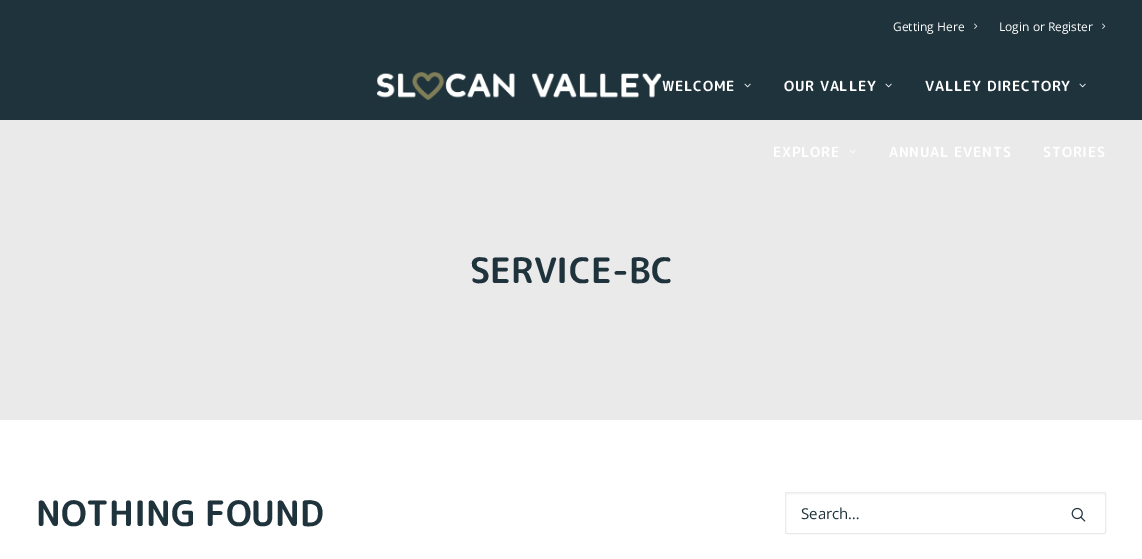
%!PS
<< /PageSize [1142 559] >> setpagedevice
/roundrect { 5 dict begin { /r /h /w /y /x } { exch def } forall
  x r add y moveto x w add y 2 copy h add r arct x w add y h add x 1 index r arct
  x y h add x y r arct x y 2 copy exch w add exch r arct closepath end } def
/picture { 5 dict begin { /h /w /y /x /name } { exch def } forall
  gsave x y translate w h scale
  w h 8 [w 0 0 h 0 0] name (r) file false 3 colorimage grestore end } def
0 559 translate 1 -1 scale
4 setmiterlimit
0.918 setgray
0 0 1142 559 rectfill
0.122 0.2 0.235 setrgbcolor
0 0 1142 120 rectfill
/OpenSans-Regular [12 0 0 -12 0 0] selectfont
1 setgray
893 31 moveto (Getting Here) show
(img1.rgb) 974 23 4 6 picture
999 31 moveto (Login or Register) show
(img1.rgb) 1102 23 4 6 picture
(img2.rgb) 377 72 285 28 picture
/RoundedMplus1cBold-Bold [14 0 0 -14 0 0] selectfont
662 91 moveto 0.75 0 (WELCOME) ashow
(img3.rgb) 744 83 7 5 picture
784 91 moveto 0.75 0 (OUR VALLEY) ashow
(img3.rgb) 885 83 7 5 picture
925 91 moveto 0.75 0 (VALLEY DIRECTORY) ashow
(img3.rgb) 1079 83 7 5 picture
773 157 moveto 0.75 0 (EXPLORE) ashow
(img4.rgb) 849 150 7 3 picture
889 157 moveto 0.75 0 (ANNUAL EVENTS) ashow
1043 157 moveto 0.75 0 (STORIES) ashow
/RoundedMplus1cBold-Bold [35 0 0 -35 0 0] selectfont
0.122 0.2 0.235 setrgbcolor
470 283 moveto (SERVICE-BC) show
1 setgray
0 420 1142 139 rectfill
0.122 0.2 0.235 setrgbcolor
36 526 moveto (NOTHING FOUND) show
0.976 setgray
newpath 787 495 moveto 1104 495 lineto 1105 495 1105 495 1105 496 curveto 1105 493 lineto 787 493 lineto 786 493 786 495 786 496 curveto 786 495 786 495 787 495 curveto closepath fill
0.918 setgray
785.5 492.5 320 41 1.5 roundrect stroke
/OpenSans-Regular [15 0 0 -15 0 0] selectfont
0.122 0.2 0.235 setrgbcolor
801 519 moveto (Search…) show
(img5.rgb) 1071 507 15 15 picture
showpage
